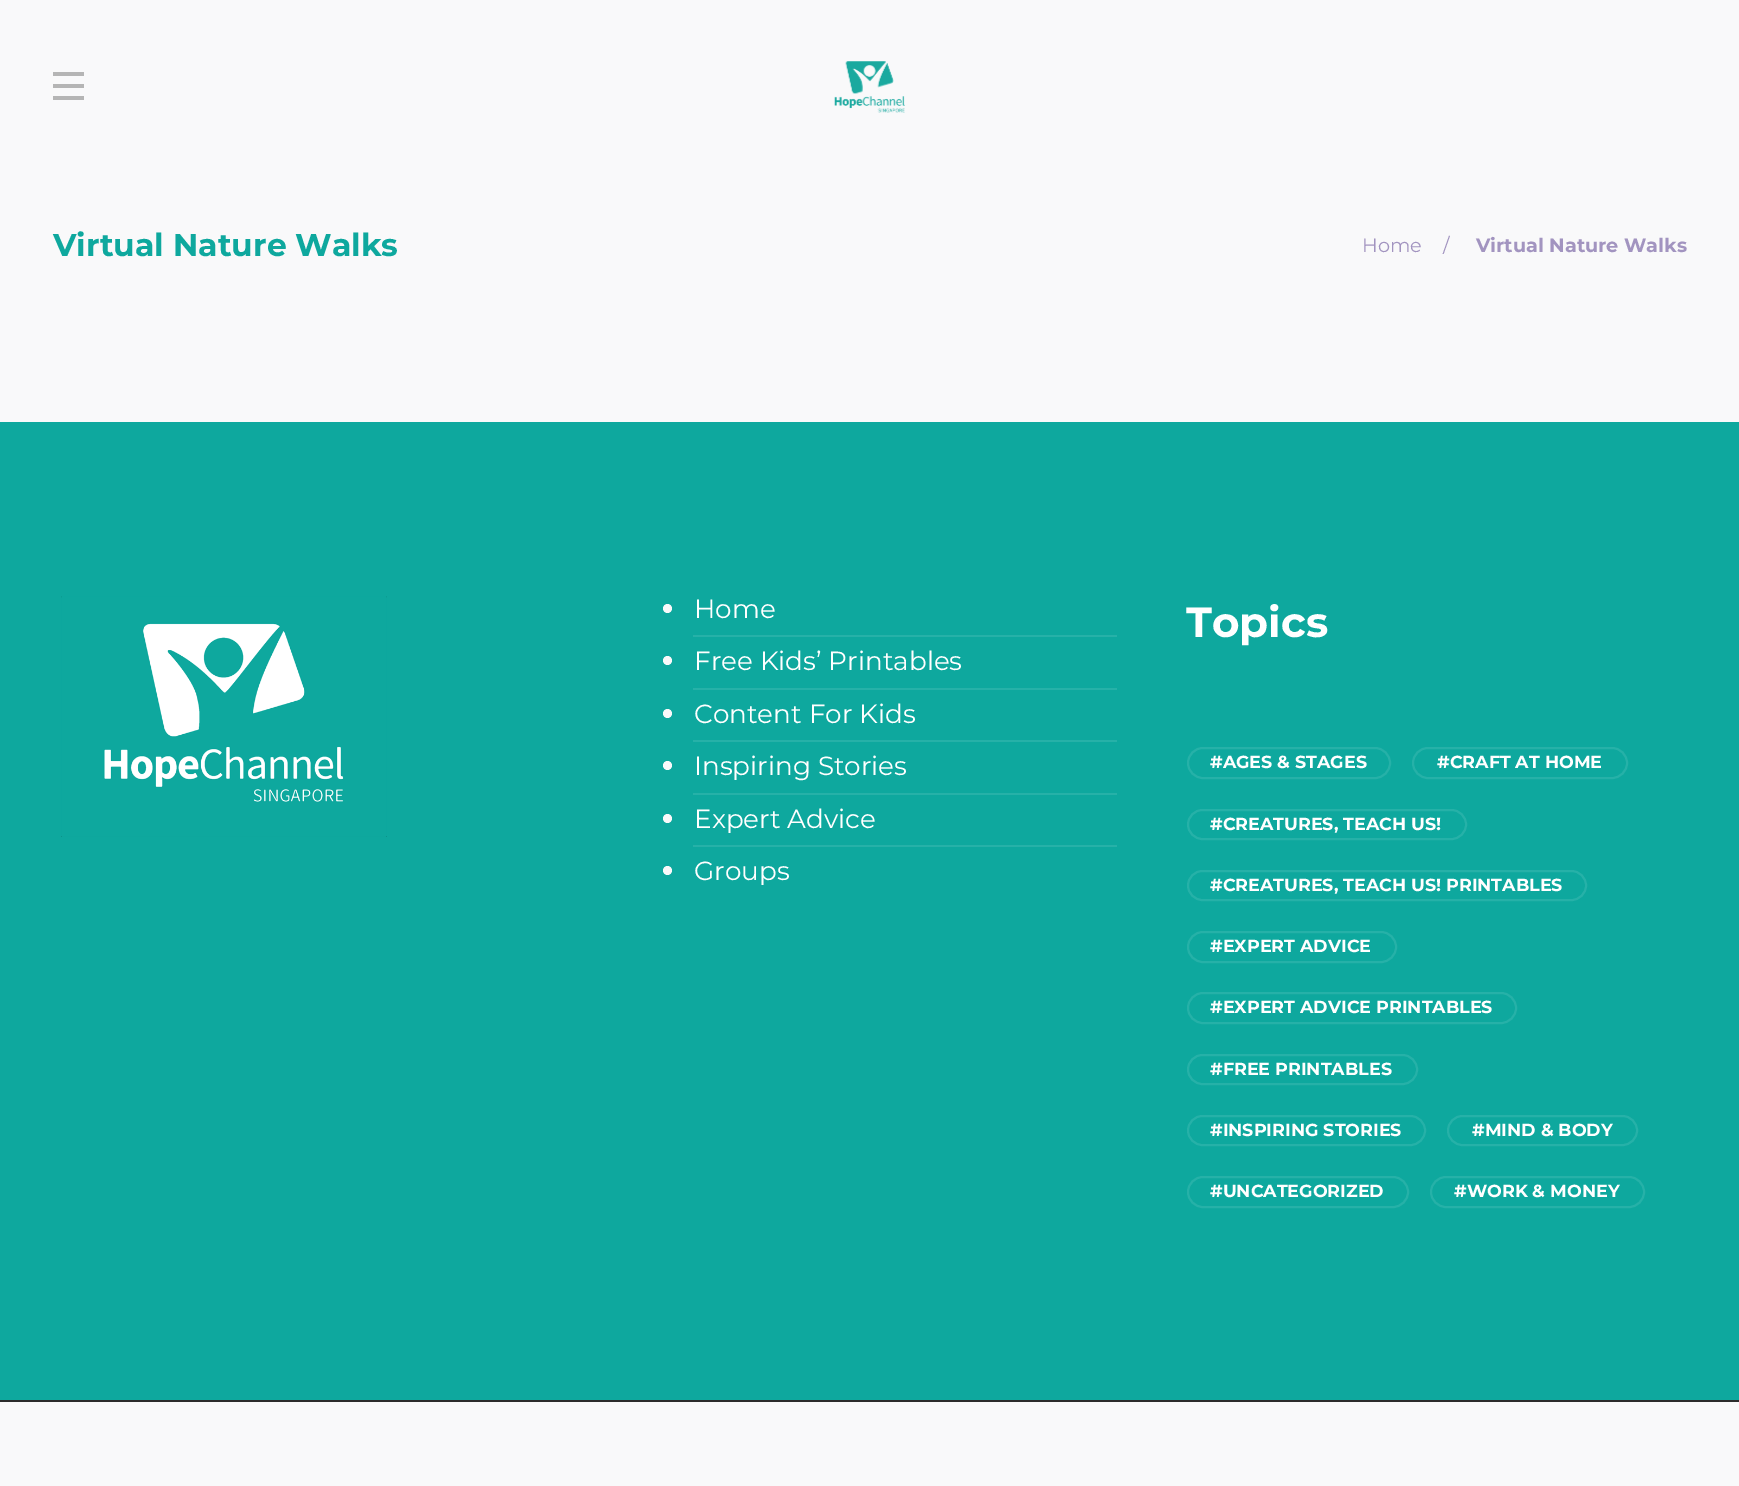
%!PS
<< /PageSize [1739 1486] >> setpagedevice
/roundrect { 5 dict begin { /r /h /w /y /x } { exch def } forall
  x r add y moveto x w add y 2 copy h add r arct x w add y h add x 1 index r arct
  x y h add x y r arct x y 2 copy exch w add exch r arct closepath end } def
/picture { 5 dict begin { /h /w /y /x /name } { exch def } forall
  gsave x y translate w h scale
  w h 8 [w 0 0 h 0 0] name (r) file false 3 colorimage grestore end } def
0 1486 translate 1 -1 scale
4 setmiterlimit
0.976 0.976 0.98 setrgbcolor
0 0 1739 1486 rectfill
0.71 setgray
53 72 31 4 rectfill
53 84 31 4 rectfill
53 96 31 4 rectfill
(img1.rgb) 834 61 71 52 picture
/Montserrat-Bold [31.5 0 0 -31.5 0 0] selectfont
0.055 0.659 0.62 setrgbcolor
53 256 moveto (Virtual Nature Walks) show
/Montserrat-Regular [19.25 0 0 -19.25 0 0] selectfont
0.635 0.58 0.753 setrgbcolor
1362 252 moveto (Home) show
1443 252 moveto (/) show
/Montserrat-Bold [19.25 0 0 -19.25 0 0] selectfont
1476 252 moveto (Virtual Nature Walks) show
0.055 0.659 0.62 setrgbcolor
0 422 1739 978 rectfill
0.173 setgray
0 1400 1739 2 rectfill
(img2.rgb) 61 596 326 241 picture
0.149 0.694 0.659 setrgbcolor
693 635 424 2 rectfill
0.976 0.976 0.98 setrgbcolor
newpath 667.5 608.5 4.5 0 360 arc closepath fill
/Montserrat-Regular [26.25 0 0 -26.25 0 0] selectfont
1 setgray
694 618 moveto (Home) show
0.149 0.694 0.659 setrgbcolor
693 688 424 2 rectfill
0.976 0.976 0.98 setrgbcolor
newpath 667.5 660.5 4.5 0 360 arc closepath fill
1 setgray
694 670 moveto (Free Kids’ Printables) show
0.149 0.694 0.659 setrgbcolor
693 740 424 2 rectfill
0.976 0.976 0.98 setrgbcolor
newpath 667.5 713.5 4.5 0 360 arc closepath fill
1 setgray
694 723 moveto (Content For Kids) show
0.149 0.694 0.659 setrgbcolor
693 793 424 2 rectfill
0.976 0.976 0.98 setrgbcolor
newpath 667.5 765.5 4.5 0 360 arc closepath fill
1 setgray
694 775 moveto (Inspiring Stories) show
0.149 0.694 0.659 setrgbcolor
693 845 424 2 rectfill
0.976 0.976 0.98 setrgbcolor
newpath 667.5 818.5 4.5 0 360 arc closepath fill
1 setgray
694 828 moveto (Expert Advice) show
0.976 0.976 0.98 setrgbcolor
newpath 667.5 870.5 4.5 0 360 arc closepath fill
1 setgray
694 880 moveto (Groups) show
/Montserrat-Bold [42 0 0 -42 0 0] selectfont
1186 637 moveto (Topics) show
0.149 0.694 0.659 setrgbcolor
2 setlinewidth
1188 748 202 30 15 roundrect stroke
/Montserrat-Bold [17.5 0 0 -17.5 0 0] selectfont
1 setgray
1210 768 moveto (#AGES & STAGES) show
0.149 0.694 0.659 setrgbcolor
1413 748 214 30 15 roundrect stroke
1 setgray
1437 768 moveto (#CRAFT AT HOME) show
0.149 0.694 0.659 setrgbcolor
1188 810 278 29 14.5 roundrect stroke
1 setgray
1210 830 moveto (#CREATURES, TEACH US!) show
0.149 0.694 0.659 setrgbcolor
1188 871 398 29 14.5 roundrect stroke
1 setgray
1210 891 moveto (#CREATURES, TEACH US! PRINTABLES) show
0.149 0.694 0.659 setrgbcolor
1188 932 208 30 15 roundrect stroke
1 setgray
1210 952 moveto (#EXPERT ADVICE) show
0.149 0.694 0.659 setrgbcolor
1188 993 328 30 15 roundrect stroke
1 setgray
1210 1013 moveto (#EXPERT ADVICE PRINTABLES) show
0.149 0.694 0.659 setrgbcolor
1188 1055 229 29 14.5 roundrect stroke
1 setgray
1210 1075 moveto (#FREE PRINTABLES) show
0.149 0.694 0.659 setrgbcolor
1188 1116 237 29 14.5 roundrect stroke
1 setgray
1210 1136 moveto (#INSPIRING STORIES) show
0.149 0.694 0.659 setrgbcolor
1448 1116 189 29 14.5 roundrect stroke
1 setgray
1472 1136 moveto (#MIND & BODY) show
0.149 0.694 0.659 setrgbcolor
1188 1177 220 30 15 roundrect stroke
1 setgray
1210 1197 moveto (#UNCATEGORIZED) show
0.149 0.694 0.659 setrgbcolor
1431 1177 213 30 15 roundrect stroke
1 setgray
1454 1197 moveto (#WORK & MONEY) show
showpage
